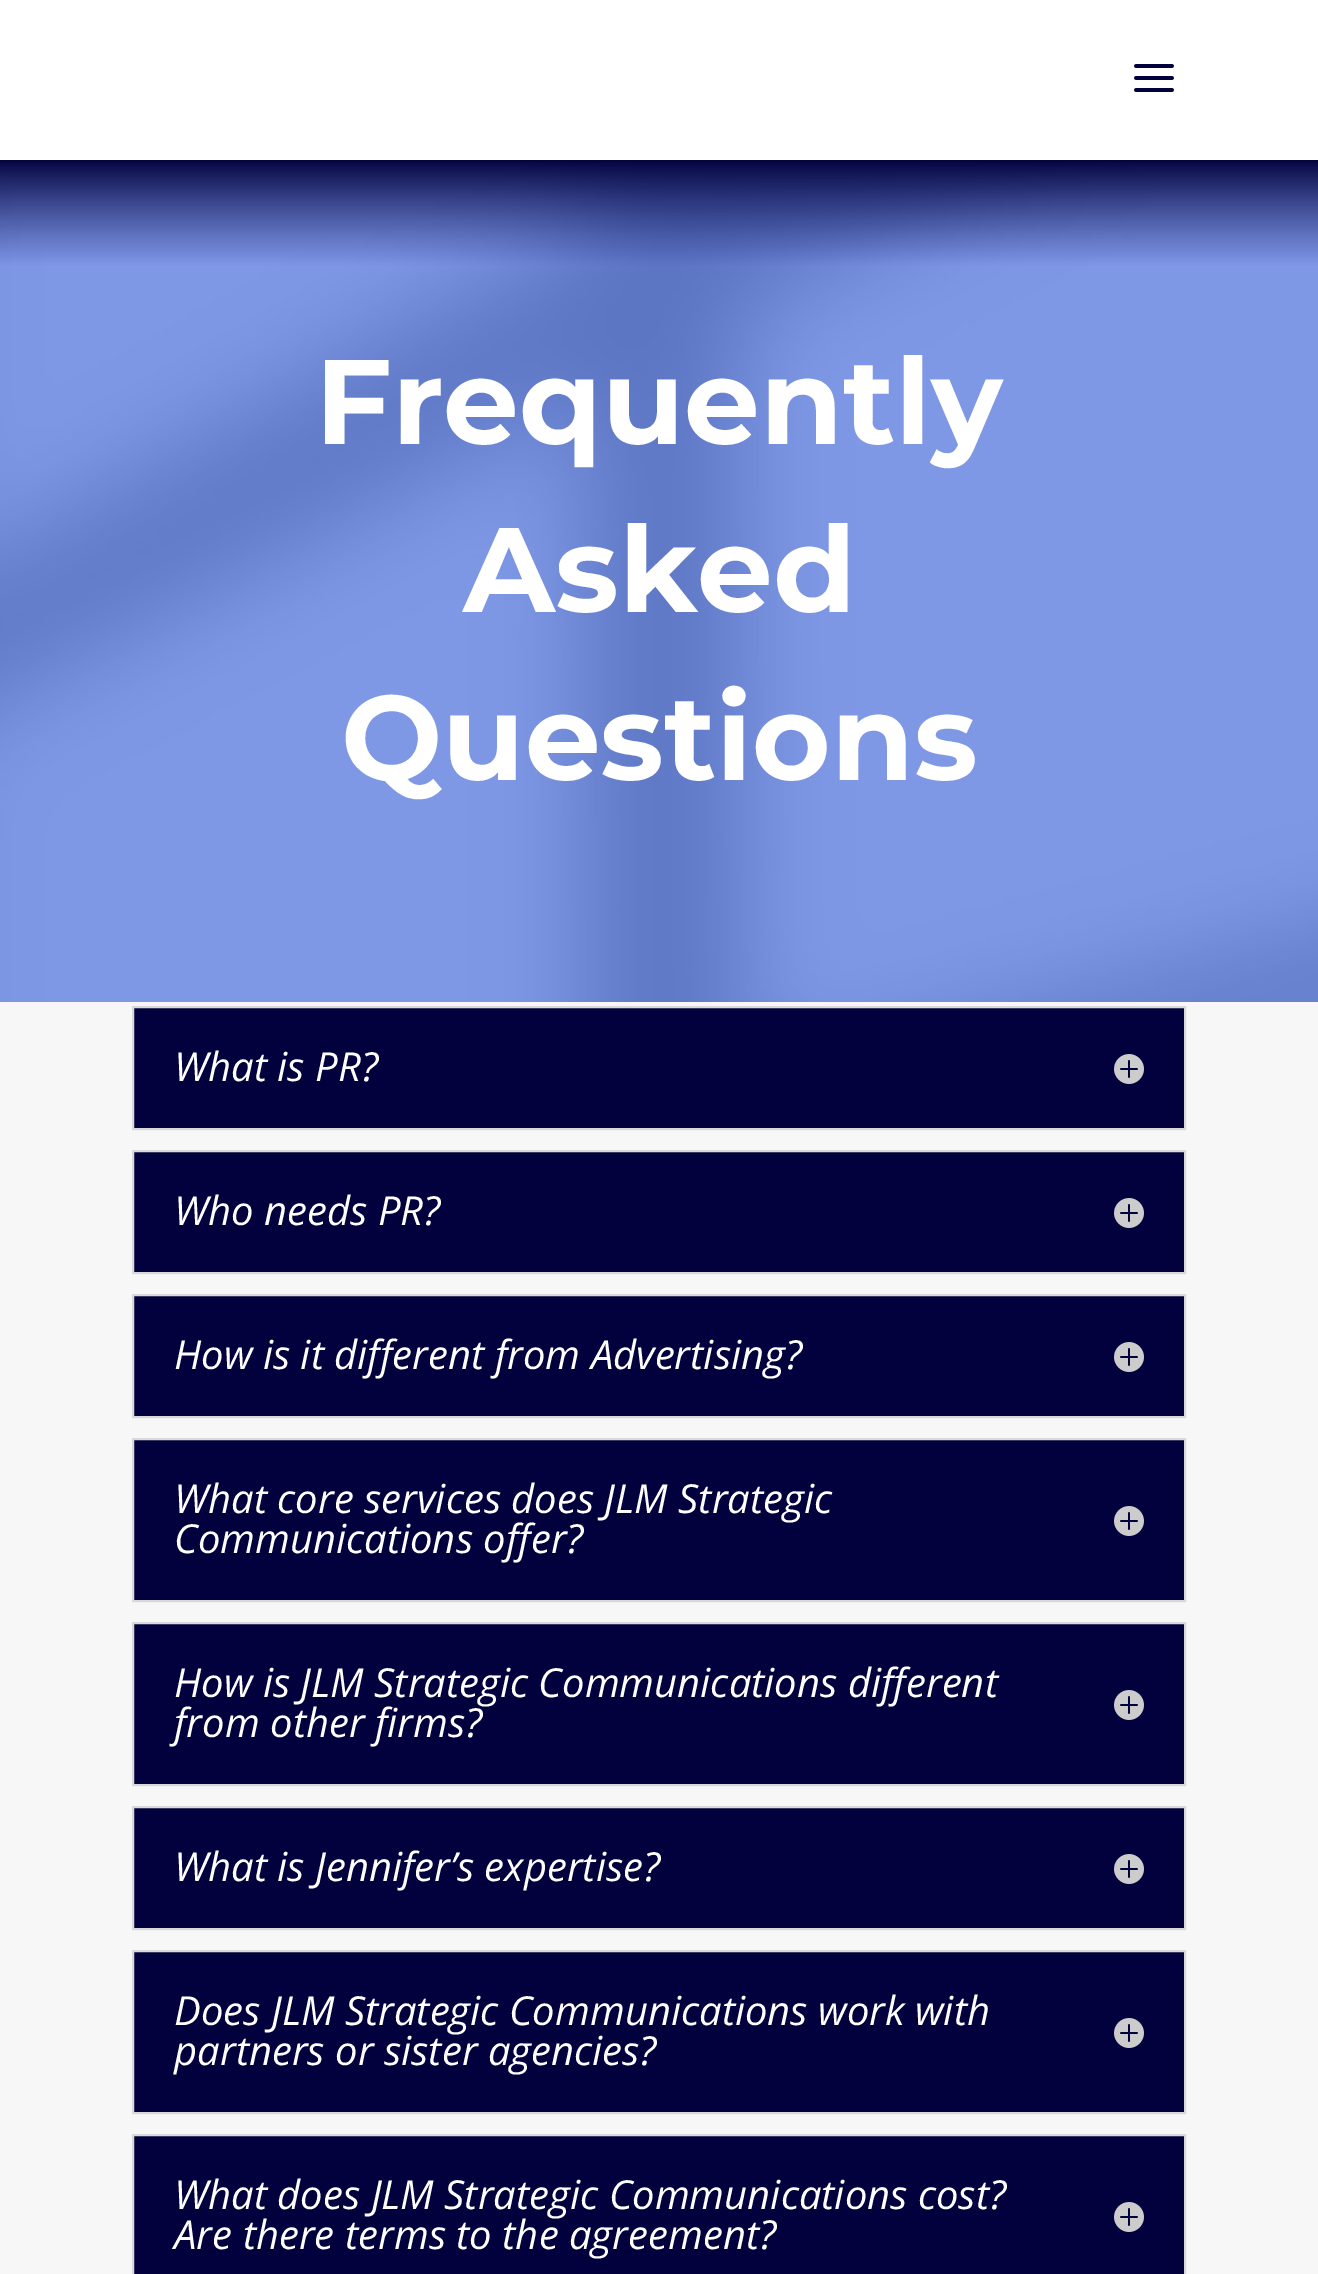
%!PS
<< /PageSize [1318 2274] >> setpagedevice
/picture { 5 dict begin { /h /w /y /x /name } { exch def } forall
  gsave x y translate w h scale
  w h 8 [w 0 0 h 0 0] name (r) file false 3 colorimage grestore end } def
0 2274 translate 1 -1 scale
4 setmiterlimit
1 setgray
0 0 1318 2274 rectfill
0.02 0.02 0.235 setrgbcolor
0 160 1318 2 rectfill
(img1.rgb) 1134 64 40 28 picture
(img2.rgb) 0 162 1318 840 picture
/Montserrat-Bold [120 0 0 -120 0 0] selectfont
1 setgray
315 444 moveto (Frequently) show
463 612 moveto (Asked) show
341 780 moveto (Questions) show
0.969 setgray
0 1002 1318 1272 rectfill
0.008 0.004 0.239 setrgbcolor
newpath 133 1007 moveto 1185 1007 lineto 1185 1129 lineto 133 1129 lineto closepath gsave fill grestore
0.851 setgray
2 setlinewidth
stroke
/OpenSans-Italic [40 0 0 -40 0 0] selectfont
1 setgray
174 1081 moveto (What is PR?) show
(img3.rgb) 1114 1054 30 30 picture
0.008 0.004 0.239 setrgbcolor
newpath 133 1151 moveto 1185 1151 lineto 1185 1273 lineto 133 1273 lineto closepath gsave fill grestore
0.851 setgray
stroke
1 setgray
174 1225 moveto (Who needs PR?) show
(img3.rgb) 1114 1198 30 30 picture
0.008 0.004 0.239 setrgbcolor
newpath 133 1295 moveto 1185 1295 lineto 1185 1417 lineto 133 1417 lineto closepath gsave fill grestore
0.851 setgray
stroke
1 setgray
174 1369 moveto (How is it different from Advertising?) show
(img3.rgb) 1114 1342 30 30 picture
0.008 0.004 0.239 setrgbcolor
newpath 133 1439 moveto 1185 1439 lineto 1185 1601 lineto 133 1601 lineto closepath gsave fill grestore
0.851 setgray
stroke
1 setgray
174 1513 moveto (What core services does JLM Strategic) show
(img3.rgb) 1114 1506 30 30 picture
174 1553 moveto (Communications offer?) show
0.008 0.004 0.239 setrgbcolor
newpath 133 1623 moveto 1185 1623 lineto 1185 1785 lineto 133 1785 lineto closepath gsave fill grestore
0.851 setgray
stroke
1 setgray
174 1697 moveto (How is JLM Strategic Communications different) show
(img3.rgb) 1114 1690 30 30 picture
174 1737 moveto (from other firms?) show
0.008 0.004 0.239 setrgbcolor
newpath 133 1807 moveto 1185 1807 lineto 1185 1929 lineto 133 1929 lineto closepath gsave fill grestore
0.851 setgray
stroke
1 setgray
174 1881 moveto (What is Jennifer’s expertise?) show
(img3.rgb) 1114 1854 30 30 picture
0.008 0.004 0.239 setrgbcolor
newpath 133 1951 moveto 1185 1951 lineto 1185 2113 lineto 133 2113 lineto closepath gsave fill grestore
0.851 setgray
stroke
1 setgray
174 2025 moveto (Does JLM Strategic Communications work with) show
(img3.rgb) 1114 2018 30 30 picture
174 2065 moveto (partners or sister agencies?) show
0.008 0.004 0.239 setrgbcolor
newpath 133 2135 moveto 1185 2135 lineto 1185 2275 lineto 133 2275 lineto closepath gsave fill grestore
0.851 setgray
stroke
1 setgray
174 2209 moveto (What does JLM Strategic Communications cost?) show
(img3.rgb) 1114 2202 30 30 picture
174 2249 moveto (Are there terms to the agreement?) show
showpage
